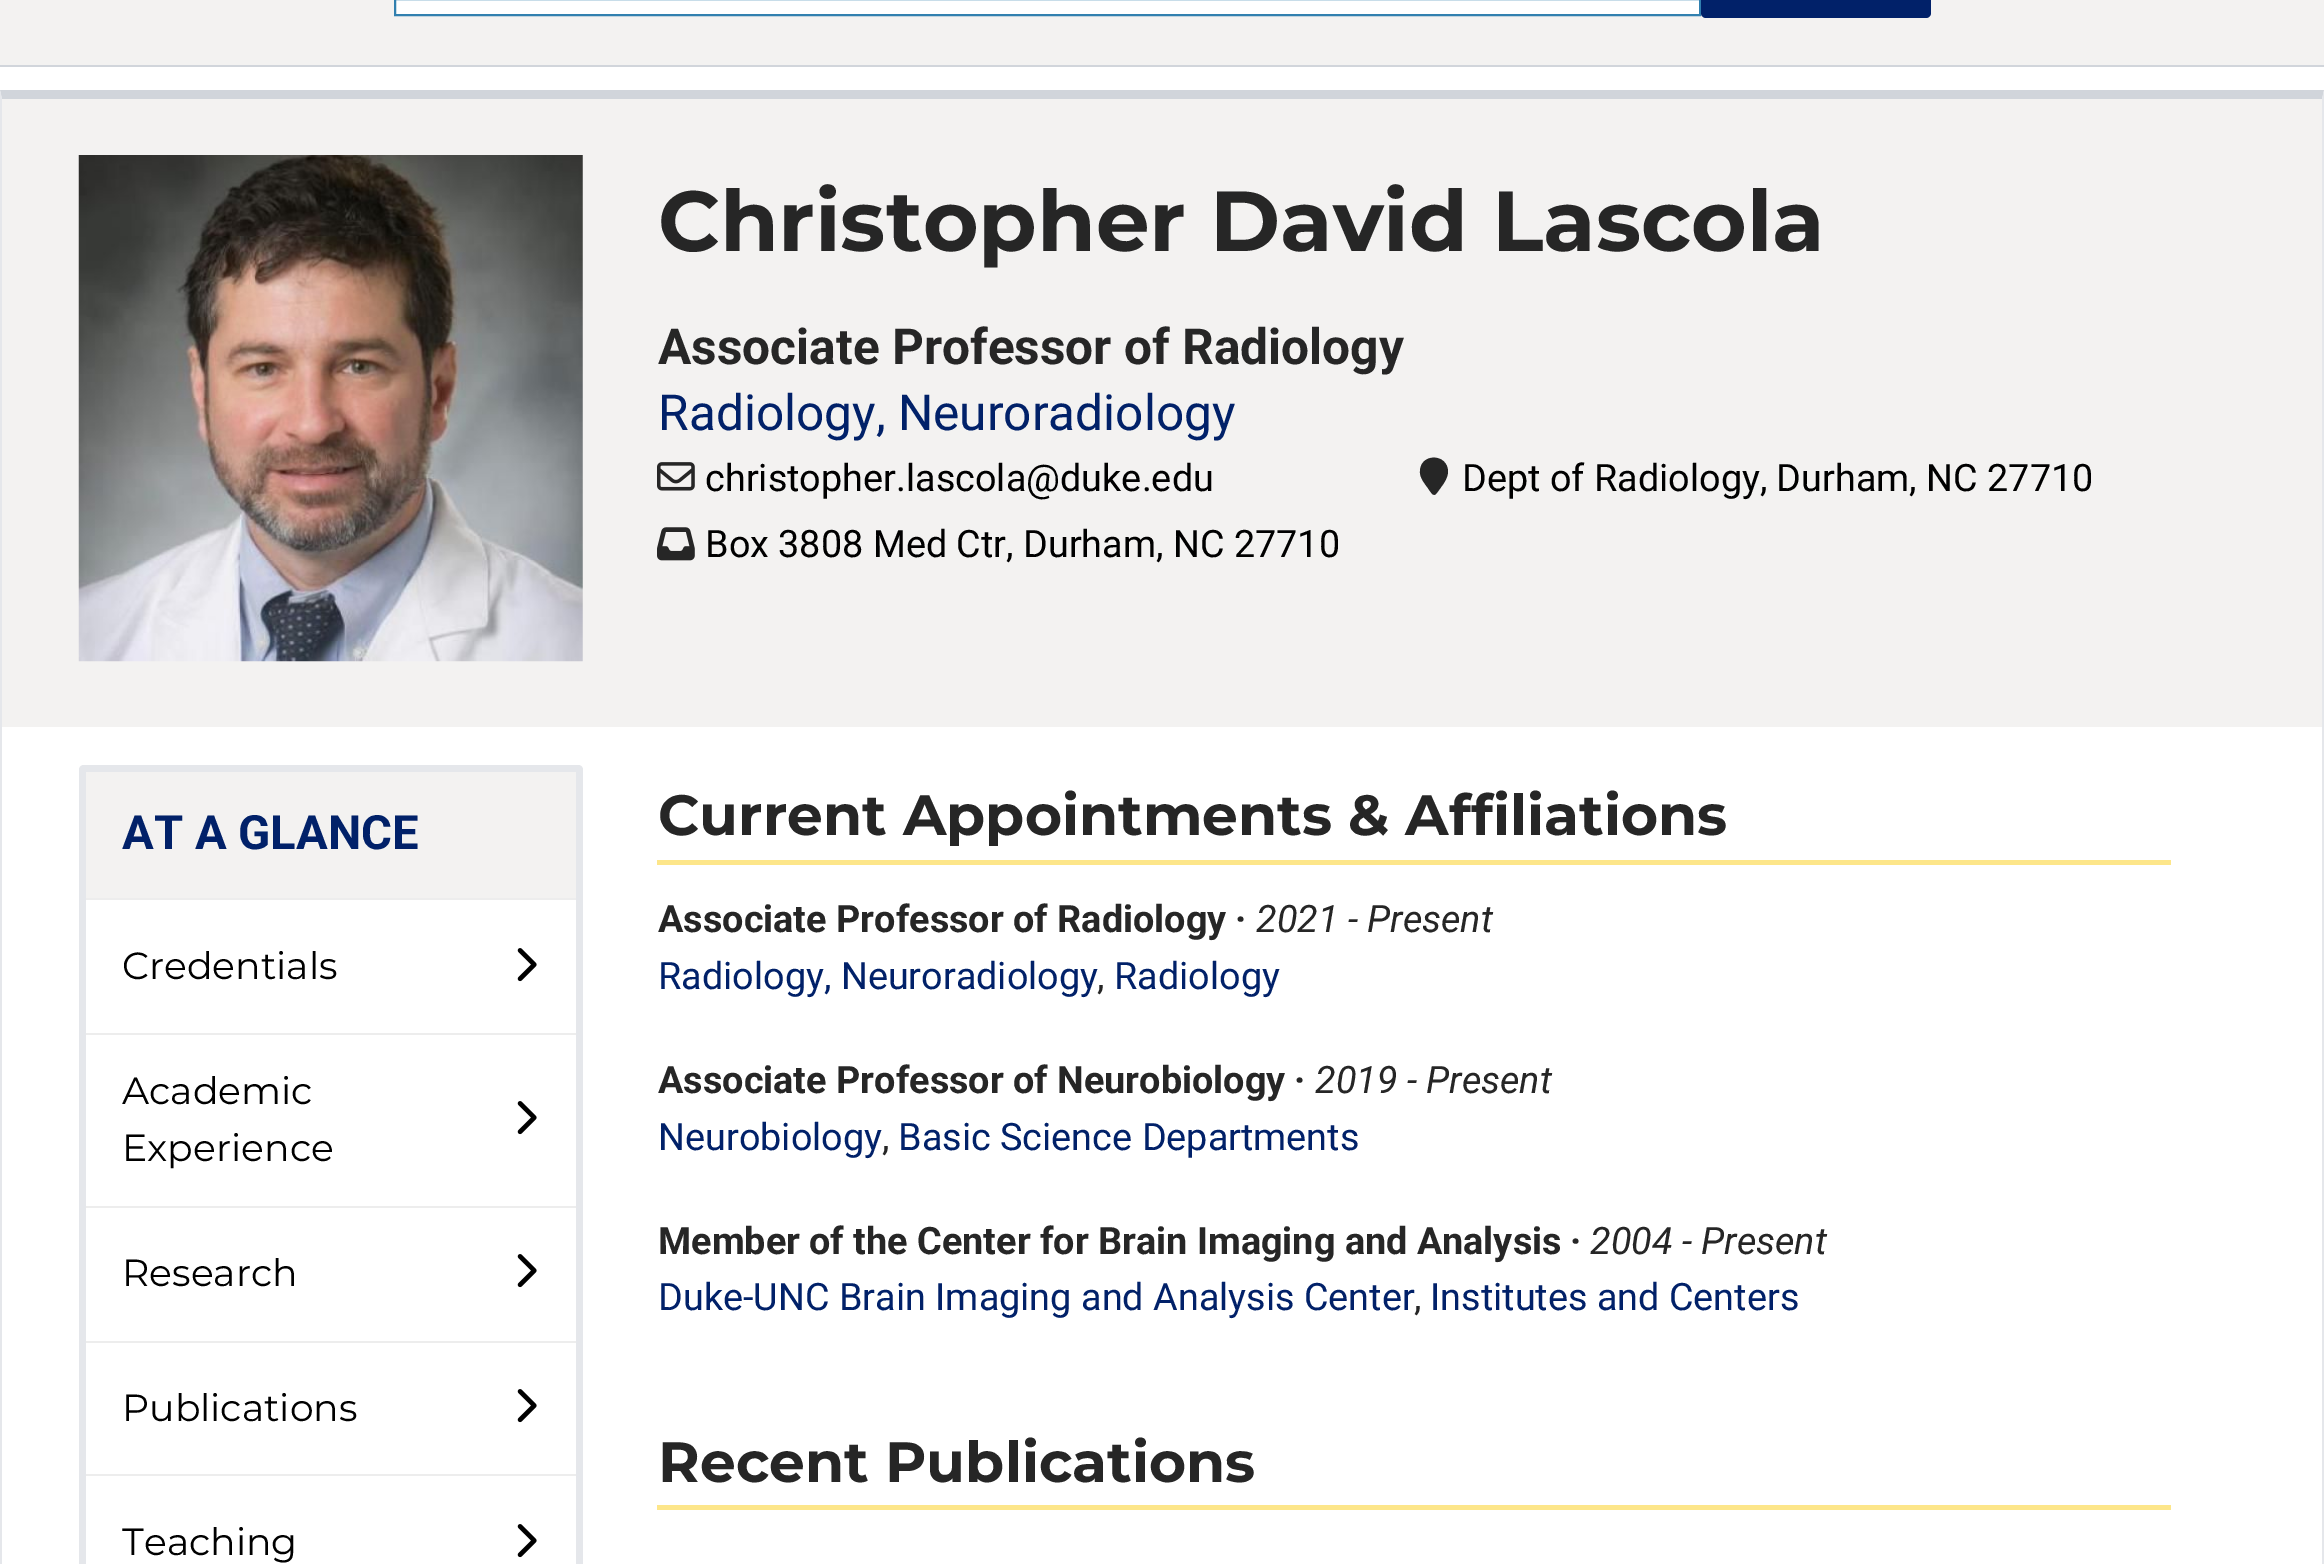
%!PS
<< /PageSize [2324 1564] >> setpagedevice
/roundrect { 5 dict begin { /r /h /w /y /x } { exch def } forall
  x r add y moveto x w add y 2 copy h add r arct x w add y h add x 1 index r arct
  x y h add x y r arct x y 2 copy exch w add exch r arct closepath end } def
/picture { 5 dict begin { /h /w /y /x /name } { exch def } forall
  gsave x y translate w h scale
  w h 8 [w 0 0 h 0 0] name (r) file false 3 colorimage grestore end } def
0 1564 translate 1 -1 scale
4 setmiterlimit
1 setgray
0 0 2324 1564 rectfill
0.82 0.835 0.859 setrgbcolor
0 65 2324 2 rectfill
0.953 0.949 0.945 setrgbcolor
0 0 2324 65 rectfill
1 setgray
newpath 395 -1 moveto 1700 -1 lineto 1700 15 lineto 395 15 lineto closepath gsave fill grestore
0.192 0.502 0.686 setrgbcolor
2 setlinewidth
stroke
0.004 0.129 0.412 setrgbcolor
1701 -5 230 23 5 roundrect fill
0.82 0.835 0.859 setrgbcolor
newpath 0 90 moveto 2324 90 lineto 2322 99 lineto 2 99 lineto closepath fill
0.898 0.906 0.922 setrgbcolor
newpath 2324 90 moveto 2324 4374 lineto 2322 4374 lineto 2322 99 lineto closepath fill
newpath 0 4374 moveto 0 90 lineto 2 99 lineto 2 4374 lineto closepath fill
0.953 0.949 0.945 setrgbcolor
2 99 2320 628 rectfill
(img1.rgb) 78 155 505 507 picture
/Montserrat-Bold [85 0 0 -85 0 0] selectfont
0.149 setgray
658 251 moveto (Christopher David Lascola) show
/Roboto-Bold [49.6 0 0 -49.6 0 0] selectfont
658 364 moveto (Associate Professor of Radiology) show
/Roboto-Regular [49.6 0 0 -49.6 0 0] selectfont
0.004 0.129 0.412 setrgbcolor
658 430 moveto (Radiology, Neuroradiology) show
(img2.rgb) 657 462 38 29 picture
/Roboto-Regular [37.8 0 0 -37.8 0 0] selectfont
0 setgray
705 491 moveto (christopher.lascola@duke.edu) show
(img3.rgb) 657 527 38 34 picture
705 557 moveto (Box 3808 Med Ctr, Durham, NC 27710) show
0.149 setgray
newpath 1448 471.5 moveto 1448 477 1444.5 482.5 1441.5 486.5 curveto 1434 497 1434.5 498 1427.5 487.5 curveto 1424.5 483.5 1419.5 477 1420 471.5 curveto 1420 453 1447.5 453 1448 471.5 curveto closepath fill
0 setgray
1462 491 moveto (Dept of Radiology, Durham, NC 27710) show
0.898 0.906 0.922 setrgbcolor
newpath 84 765 moveto 81 765 79 767 79 770 curveto 79 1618 lineto 583 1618 lineto 583 770 lineto 583 767 581 765 578 765 curveto closepath 86 772 moveto 86 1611 lineto 576 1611 lineto 576 772 lineto closepath eofill
0.929 setgray
86 898 490 2 rectfill
0.953 0.949 0.945 setrgbcolor
86 772 490 126 rectfill
/Roboto-Bold [47.25 0 0 -47.25 0 0] selectfont
0.004 0.129 0.412 setrgbcolor
122 849 moveto (AT A GLANCE) show
0.929 setgray
86 1033 490 2 rectfill
/Montserrat-Regular [37.8 0 0 -37.8 0 0] selectfont
0 setgray
122 979 moveto (Credentials) show
(img4.rgb) 517 948 20 34 picture
0.929 setgray
86 1206 490 2 rectfill
0 setgray
122 1104 moveto (Academic) show
122 1161 moveto (Experience) show
(img4.rgb) 517 1101 20 34 picture
0.929 setgray
86 1341 490 2 rectfill
0 setgray
122 1286 moveto (Research) show
(img4.rgb) 517 1254 20 34 picture
0.929 setgray
86 1474 490 2 rectfill
0 setgray
122 1421 moveto (Publications) show
(img4.rgb) 517 1389 20 34 picture
122 1555 moveto (Teaching) show
(img4.rgb) 517 1524 20 34 picture
/Montserrat-Bold [56.75 0 0 -56.75 0 0] selectfont
0.149 setgray
658 835 moveto (Current Appointments & Affiliations) show
0.992 0.902 0.541 setrgbcolor
657 860 1514 5 rectfill
/Roboto-Bold [37.8 0 0 -37.8 0 0] selectfont
0.149 setgray
658 932 moveto (Associate Professor of Radiology) show
1235 932 moveto (·) show
/Roboto-Italic [37.8 0 0 -37.8 0 0] selectfont
1256 932 moveto (2021 - Present) show
/Roboto-Regular [37.8 0 0 -37.8 0 0] selectfont
0.004 0.129 0.412 setrgbcolor
658 989 moveto (Radiology, Neuroradiology) show
0.149 setgray
1097 989 moveto (,) show
0.004 0.129 0.412 setrgbcolor
1114 989 moveto (Radiology) show
/Roboto-Bold [37.8 0 0 -37.8 0 0] selectfont
0.149 setgray
658 1093 moveto (Associate Professor of Neurobiology) show
1294 1093 moveto (·) show
/Roboto-Italic [37.8 0 0 -37.8 0 0] selectfont
1315 1093 moveto (2019 - Present) show
/Roboto-Regular [37.8 0 0 -37.8 0 0] selectfont
0.004 0.129 0.412 setrgbcolor
658 1150 moveto (Neurobiology) show
0.149 setgray
882 1150 moveto (,) show
0.004 0.129 0.412 setrgbcolor
898 1150 moveto (Basic Science Departments) show
/Roboto-Bold [37.8 0 0 -37.8 0 0] selectfont
0.149 setgray
658 1254 moveto (Member of the Center for Brain Imaging and Analysis) show
1570 1254 moveto (·) show
/Roboto-Italic [37.8 0 0 -37.8 0 0] selectfont
1590 1254 moveto (2004 - Present) show
/Roboto-Regular [37.8 0 0 -37.8 0 0] selectfont
0.004 0.129 0.412 setrgbcolor
658 1310 moveto (Duke-UNC Brain Imaging and Analysis Center) show
0.149 setgray
1414 1310 moveto (,) show
0.004 0.129 0.412 setrgbcolor
1430 1310 moveto (Institutes and Centers) show
/Montserrat-Bold [56.75 0 0 -56.75 0 0] selectfont
0.149 setgray
658 1482 moveto (Recent Publications) show
0.992 0.902 0.541 setrgbcolor
657 1505 1514 5 rectfill
showpage
